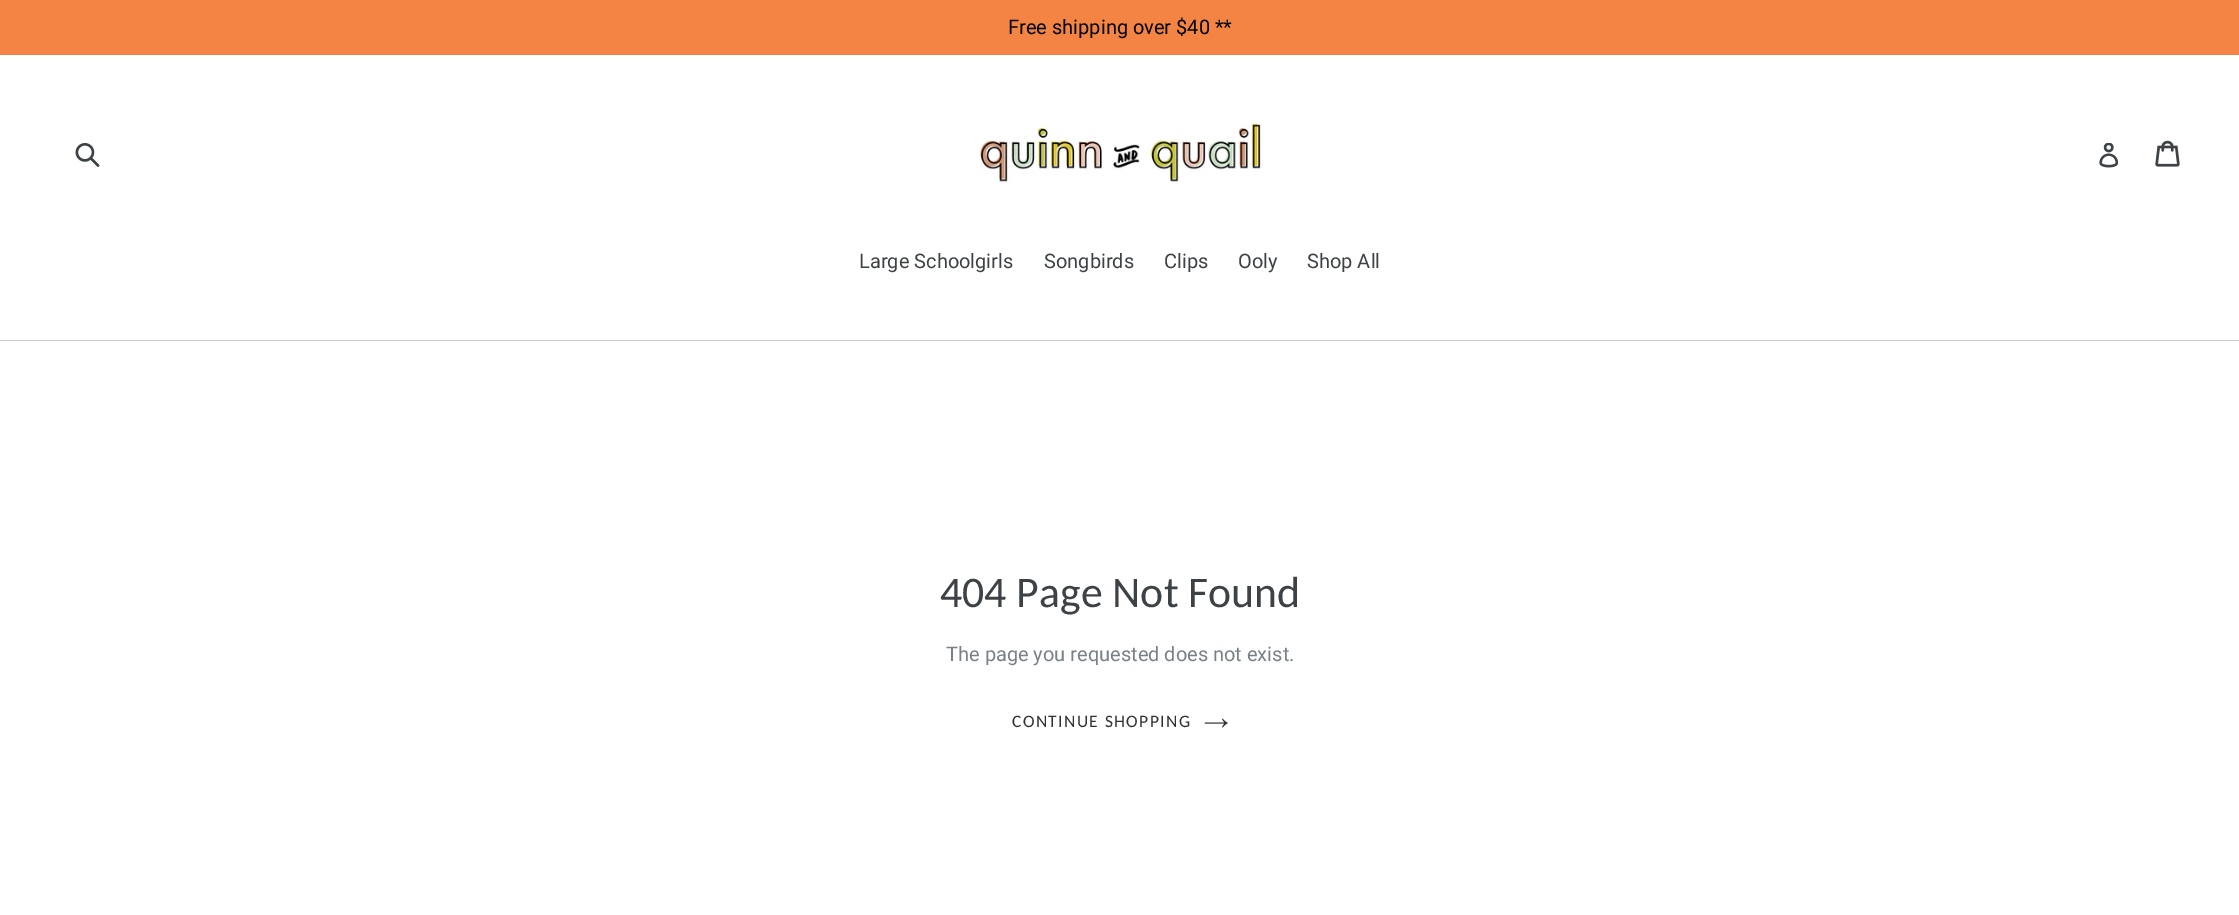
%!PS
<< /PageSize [2239 915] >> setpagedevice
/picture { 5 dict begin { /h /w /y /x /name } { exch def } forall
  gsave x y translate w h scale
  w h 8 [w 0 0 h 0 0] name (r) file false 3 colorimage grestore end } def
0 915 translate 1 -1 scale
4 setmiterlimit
1 setgray
0 0 2239 915 rectfill
0.957 0.518 0.263 setrgbcolor
0 0 2239 55 rectfill
/Roboto-Regular [20 0 0 -20 0 0] selectfont
0 setgray
1008 34 moveto (Free shipping over $40 **) show
(img1.rgb) 75 143 25 24 picture
(img2.rgb) 979 120 284 63 picture
(img3.rgb) 2099 143 20 25 picture
(img4.rgb) 2155 140 25 27 picture
0.796 setgray
0 340 2239 1 rectfill
0.239 0.259 0.275 setrgbcolor
859 268 moveto (Large Schoolgirls) show
1044 268 moveto (Songbirds) show
1164 268 moveto (Clips) show
1238 268 moveto (Ooly) show
1307 268 moveto (Shop All) show
/Carlito-Regular [43.75 0 0 -43.75 0 0] selectfont
940 607 moveto (404 Page Not Found) show
/Roboto-Regular [20 0 0 -20 0 0] selectfont
0.471 0.506 0.533 setrgbcolor
946 661 moveto (The page you requested does not exist.) show
/Carlito-Regular [17.5 0 0 -17.5 0 0] selectfont
0.192 setgray
1012 727 moveto 1.4 0 (CONTINUE SHOPPING) ashow
(img5.rgb) 1204 718 24 10 picture
showpage
